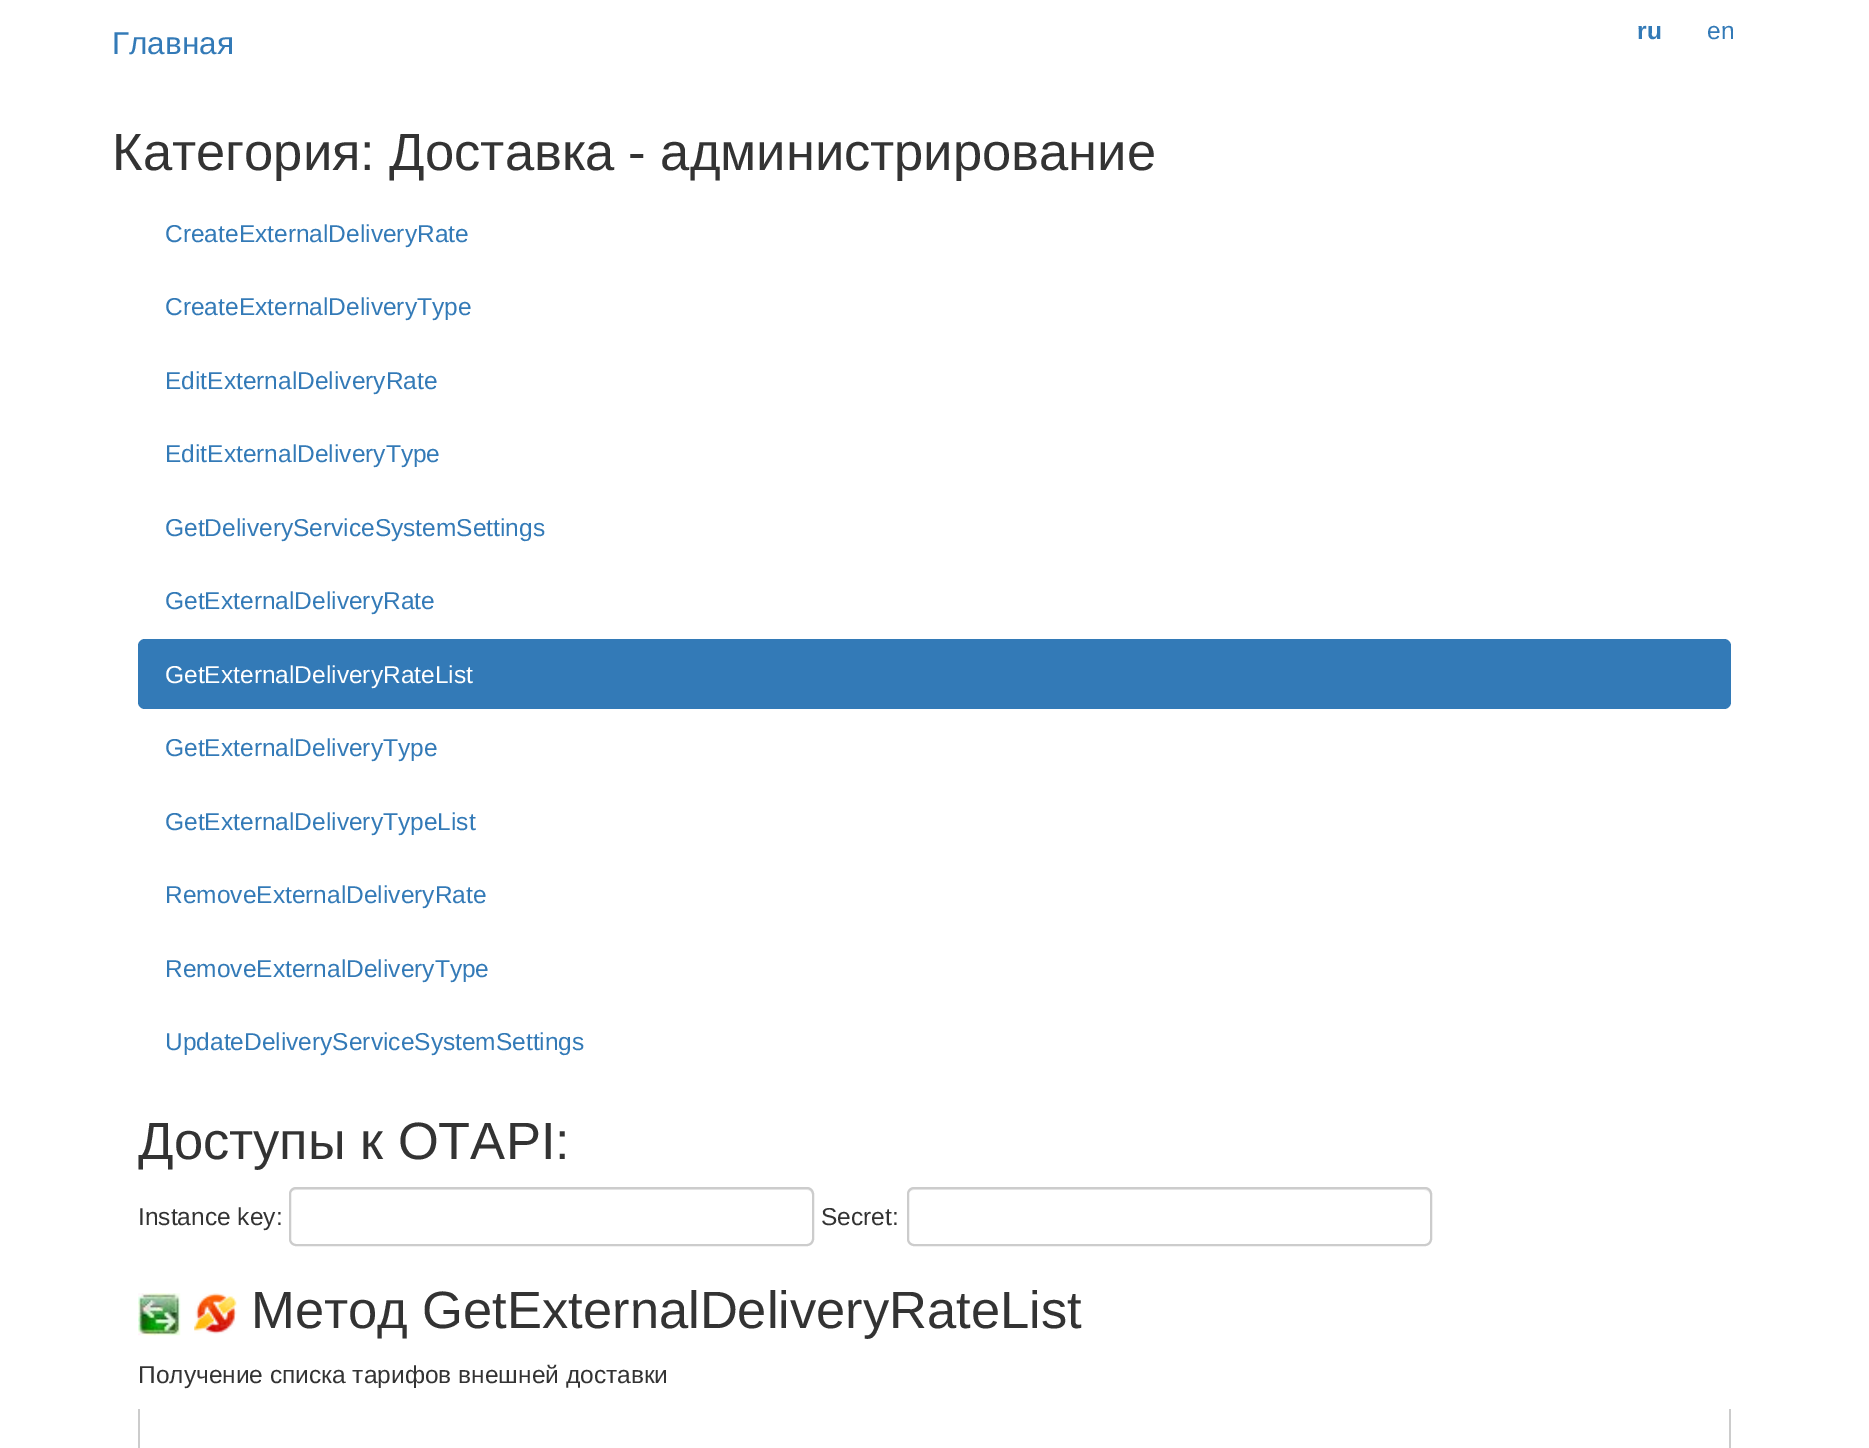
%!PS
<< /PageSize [1869 1448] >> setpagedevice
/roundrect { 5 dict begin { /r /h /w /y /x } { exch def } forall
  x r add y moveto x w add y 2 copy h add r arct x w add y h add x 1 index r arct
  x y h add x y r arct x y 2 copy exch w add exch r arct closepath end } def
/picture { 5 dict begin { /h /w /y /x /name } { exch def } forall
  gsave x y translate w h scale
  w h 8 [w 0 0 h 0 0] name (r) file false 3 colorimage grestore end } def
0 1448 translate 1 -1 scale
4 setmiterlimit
1 setgray
0 0 1869 1448 rectfill
/LiberationSans-Regular [31.5 0 0 -31.5 0 0] selectfont
0.2 0.478 0.718 setrgbcolor
112 54 moveto (Главная) show
/LiberationSans-Bold [24.5 0 0 -24.5 0 0] selectfont
1637 39 moveto (ru) show
/LiberationSans-Regular [24.5 0 0 -24.5 0 0] selectfont
1707 39 moveto (en) show
/LiberationSans-Regular [52.5 0 0 -52.5 0 0] selectfont
0.2 setgray
112 170 moveto (Категория: Доставка - администрирование) show
/LiberationSans-Regular [24.5 0 0 -24.5 0 0] selectfont
0.2 0.478 0.718 setrgbcolor
165 242 moveto (CreateExternalDeliveryRate) show
165 315 moveto (CreateExternalDeliveryType) show
165 389 moveto (EditExternalDeliveryRate) show
165 462 moveto (EditExternalDeliveryType) show
165 536 moveto (GetDeliveryServiceSystemSettings) show
165 609 moveto (GetExternalDeliveryRate) show
138 639 1593 70 7 roundrect fill
1 setgray
165 683 moveto (GetExternalDeliveryRateList) show
0.2 0.478 0.718 setrgbcolor
165 756 moveto (GetExternalDeliveryType) show
165 830 moveto (GetExternalDeliveryTypeList) show
165 903 moveto (RemoveExternalDeliveryRate) show
165 977 moveto (RemoveExternalDeliveryType) show
165 1050 moveto (UpdateDeliveryServiceSystemSettings) show
/LiberationSans-Regular [52.5 0 0 -52.5 0 0] selectfont
0.2 setgray
138 1159 moveto (Доступы к OTAPI:) show
/LiberationSans-Regular [24.5 0 0 -24.5 0 0] selectfont
138 1225 moveto (Instance key:) show
0.925 setgray
newpath 296 1190 moveto 807 1190 lineto 810 1190 812 1192 812 1195 curveto 812 1193 lineto 812 1190 810 1188 807 1188 curveto 296 1188 lineto 294 1188 291 1190 291 1192 curveto 292 1191 294 1190 296 1190 curveto closepath fill
0.8 setgray
2 setlinewidth
290 1188 523 57 6 roundrect stroke
0.2 setgray
821 1225 moveto (Secret:) show
0.925 setgray
newpath 914 1190 moveto 1424 1190 lineto 1427 1190 1430 1192 1430 1195 curveto 1430 1193 lineto 1430 1190 1428 1188 1425 1188 curveto 913 1188 lineto 910 1188 908 1190 908 1193 curveto 908 1195 lineto 908 1192 911 1190 914 1190 curveto closepath fill
0.8 setgray
908 1188 523 57 6 roundrect stroke
(img1.rgb) 138 1293 43 43 picture
(img2.rgb) 194 1293 43 41 picture
/LiberationSans-Regular [52.5 0 0 -52.5 0 0] selectfont
0.2 setgray
251 1328 moveto (Метод GetExternalDeliveryRateList) show
/LiberationSans-Regular [24.5 0 0 -24.5 0 0] selectfont
138 1383 moveto (Получение списка тарифов внешней доставки) show
0.8 setgray
1729 1409 2 39 rectfill
138 1409 2 39 rectfill
showpage
